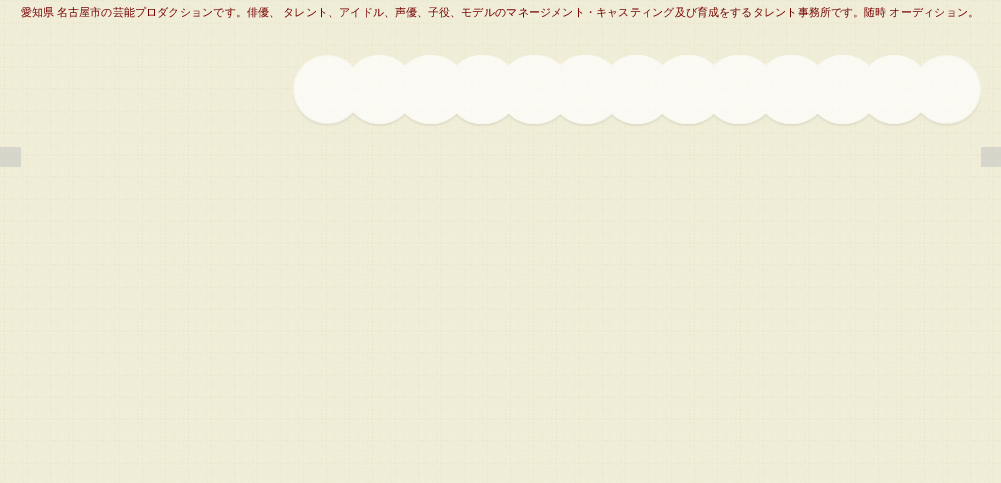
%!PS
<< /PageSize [1001 483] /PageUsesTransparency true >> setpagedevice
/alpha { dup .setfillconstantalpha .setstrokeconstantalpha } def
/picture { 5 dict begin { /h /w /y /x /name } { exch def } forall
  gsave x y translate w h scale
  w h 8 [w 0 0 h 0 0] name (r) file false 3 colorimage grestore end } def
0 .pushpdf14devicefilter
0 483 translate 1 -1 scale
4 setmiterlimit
1 setgray
0 0 1001 483 rectfill
(img1.rgb) 0 0 1001 483 picture
/WenQuanYiZenHei-Medium [11 0 0 -11 0 0] selectfont
0.467 0 0 setrgbcolor
21 16 moveto (愛知県 名古屋市の芸能プロダクションです。俳優、 タレント、アイドル、声優、子役、モデルのマネージメント・キャスティング及び育成をするタレント事務所です。随時 オーディション。) show
(img2.rgb) 293 55 688 72 picture
0.5 alpha
0.749 setgray
0 147 21 20 rectfill
981 147 20 20 rectfill
.poppdf14devicefilter showpage
